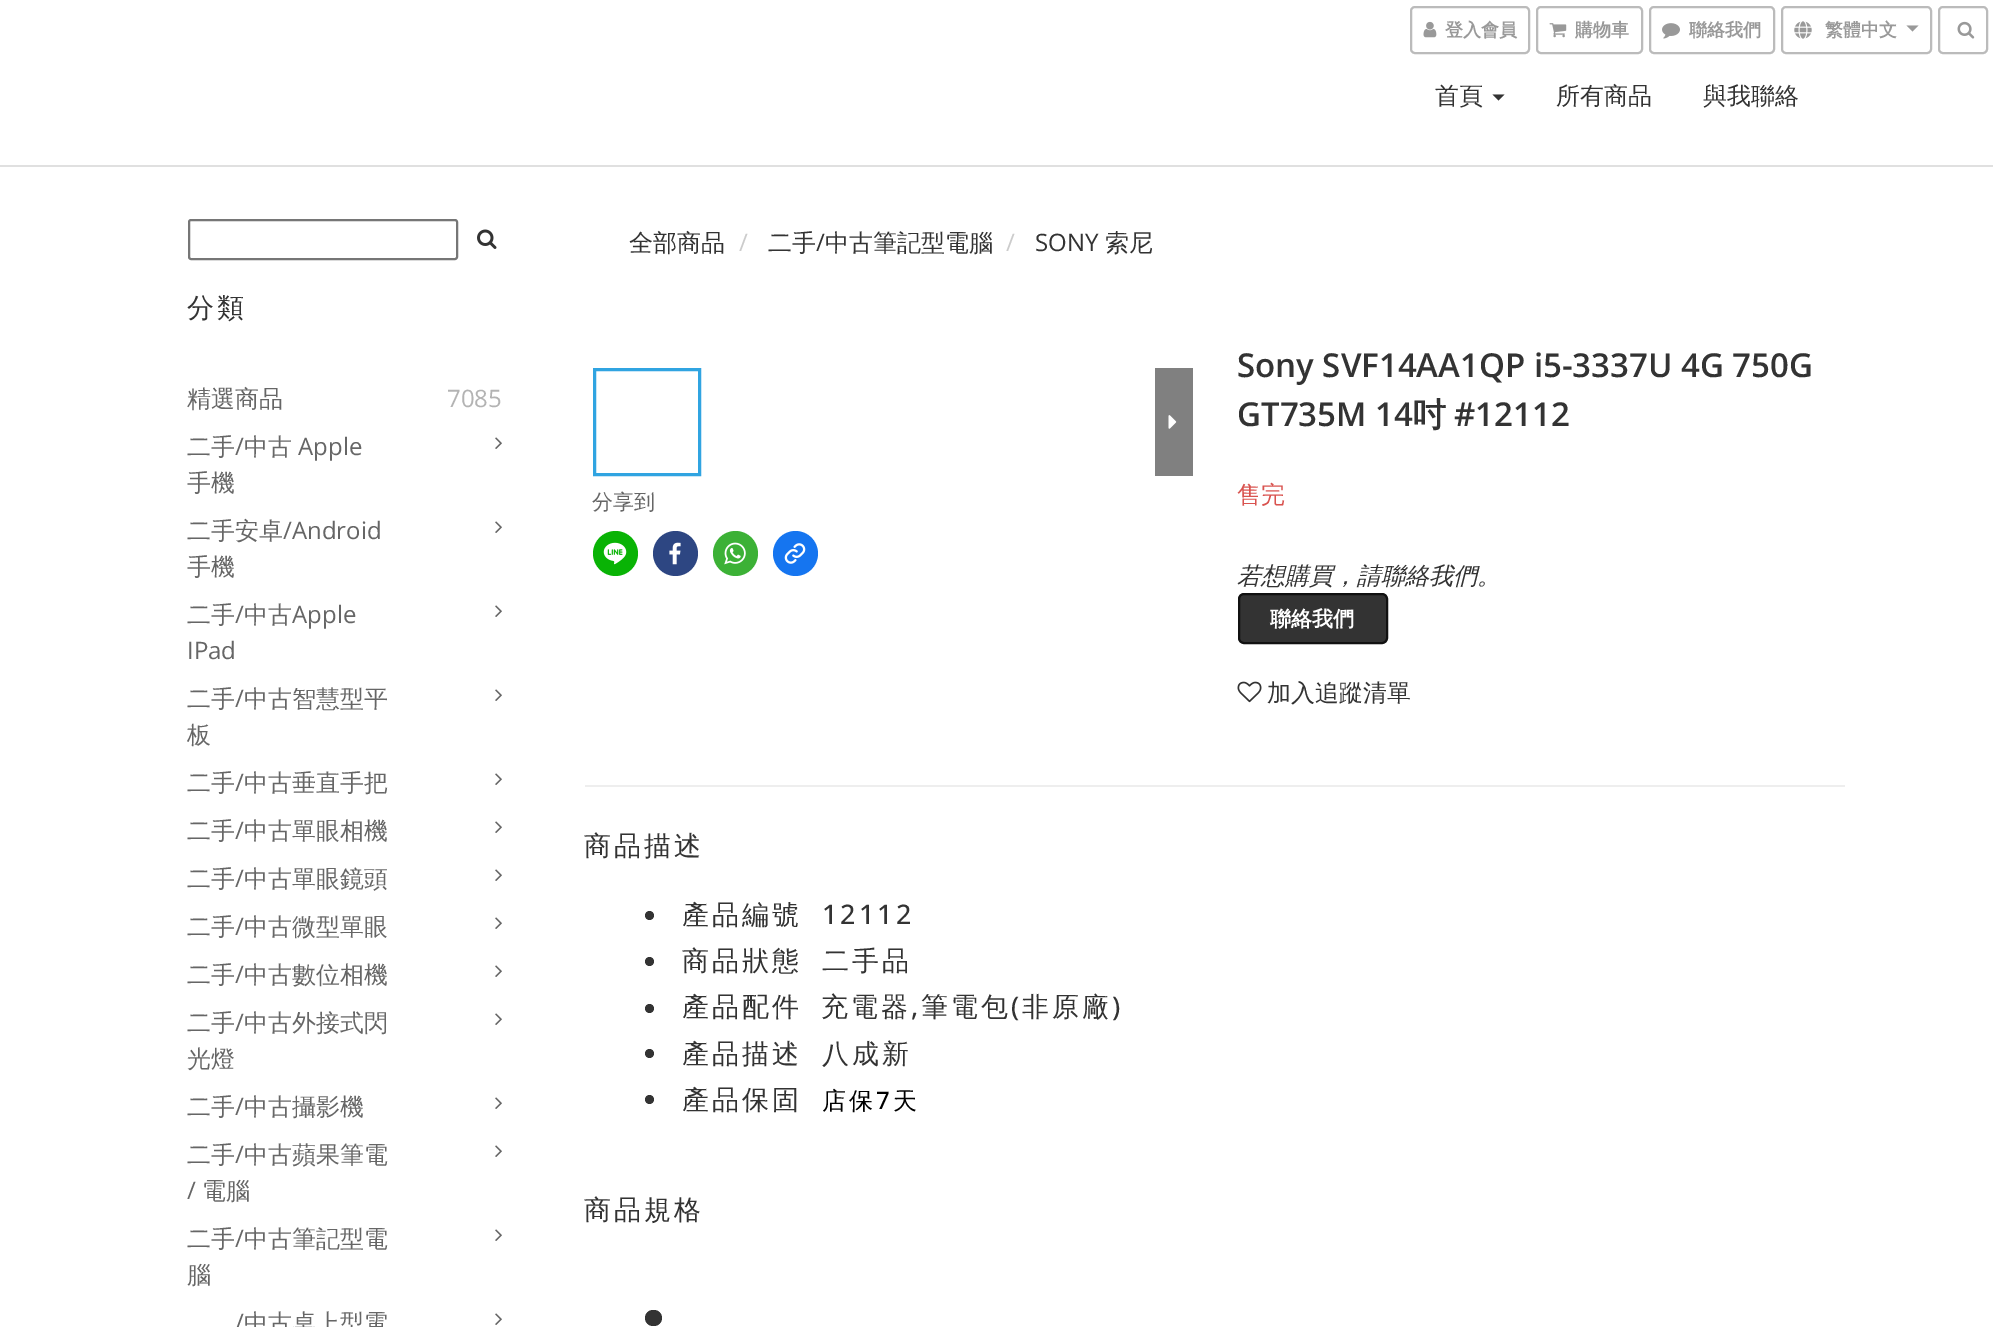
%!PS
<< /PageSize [1993 1327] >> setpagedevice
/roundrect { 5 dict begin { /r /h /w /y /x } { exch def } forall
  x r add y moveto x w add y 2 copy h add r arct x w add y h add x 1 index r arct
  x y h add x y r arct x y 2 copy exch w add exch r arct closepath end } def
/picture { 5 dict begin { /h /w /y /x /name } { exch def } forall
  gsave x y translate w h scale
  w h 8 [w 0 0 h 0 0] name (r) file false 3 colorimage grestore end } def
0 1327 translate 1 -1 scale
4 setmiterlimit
1 setgray
0 0 1993 1327 rectfill
0.733 setgray
2 setlinewidth
1411 7 118 46 4 roundrect stroke
(img1.rgb) 1423 21 14 17 picture
/WenQuanYiZenHei-Bold [18 0 0 -18 0 0] selectfont
0.6 setgray
1445 36 moveto (登入會員) show
0.733 setgray
1537 7 105 46 4 roundrect stroke
(img2.rgb) 1549 23 18 15 picture
0.6 setgray
1575 36 moveto (購物車) show
0.733 setgray
1650 7 124 46 4 roundrect stroke
(img3.rgb) 1662 23 18 16 picture
0.6 setgray
1689 36 moveto (聯絡我們) show
0.733 setgray
1782 7 149 46 4 roundrect stroke
(img4.rgb) 1794 21 18 18 picture
0.6 setgray
1825 36 moveto (繁體中文) show
newpath 1906.5 25.5 moveto 1918.5 25.5 lineto 1912.5 31.5 lineto closepath fill
0.733 setgray
1939 7 48 46 4 roundrect stroke
(img5.rgb) 1957 21 18 18 picture
0.878 setgray
0 165 1993 2 rectfill
/WenQuanYiZenHei-Medium [24 0 0 -24 0 0] selectfont
0.2 setgray
1435 104 moveto (首頁) show
newpath 1492.5 94.5 moveto 1504.5 94.5 lineto 1498.5 100.5 lineto closepath fill
1556 104 moveto (所有商品) show
1703 104 moveto (與我聯絡) show
0.463 setgray
189 220 268 39 2 roundrect stroke
(img6.rgb) 477 229 20 20 picture
/WenQuanYiZenHei-Medium [27 0 0 -27 0 0] selectfont
0.2 setgray
187 317 moveto 3 0 (分類) ashow
/WenQuanYiZenHei-Medium [24 0 0 -24 0 0] selectfont
0.4 setgray
187 407 moveto (精選商品) show
/OpenSans-Regular [24 0 0 -24 0 0] selectfont
0.702 setgray
447 407 moveto (7085) show
/WenQuanYiZenHei-Medium [24 0 0 -24 0 0] selectfont
0.4 setgray
187 455 moveto (二手) show
/OpenSans-Regular [24 0 0 -24 0 0] selectfont
235 455 moveto (/) show
/WenQuanYiZenHei-Medium [24 0 0 -24 0 0] selectfont
244 455 moveto (中古) show
/OpenSans-Regular [24 0 0 -24 0 0] selectfont
298 455 moveto (Apple) show
/WenQuanYiZenHei-Medium [24 0 0 -24 0 0] selectfont
187 491 moveto (手機) show
(img7.rgb) 495 437 7 12 picture
187 539 moveto (二手安卓) show
/OpenSans-Regular [24 0 0 -24 0 0] selectfont
283 539 moveto (/Android) show
/WenQuanYiZenHei-Medium [24 0 0 -24 0 0] selectfont
187 575 moveto (手機) show
(img7.rgb) 495 521 7 12 picture
187 623 moveto (二手) show
/OpenSans-Regular [24 0 0 -24 0 0] selectfont
235 623 moveto (/) show
/WenQuanYiZenHei-Medium [24 0 0 -24 0 0] selectfont
244 623 moveto (中古) show
/OpenSans-Regular [24 0 0 -24 0 0] selectfont
292 623 moveto (Apple) show
187 659 moveto (IPad) show
(img7.rgb) 495 605 7 12 picture
/WenQuanYiZenHei-Medium [24 0 0 -24 0 0] selectfont
187 707 moveto (二手) show
/OpenSans-Regular [24 0 0 -24 0 0] selectfont
235 707 moveto (/) show
/WenQuanYiZenHei-Medium [24 0 0 -24 0 0] selectfont
244 707 moveto (中古智慧型平) show
187 743 moveto (板) show
(img7.rgb) 495 689 7 12 picture
187 791 moveto (二手) show
/OpenSans-Regular [24 0 0 -24 0 0] selectfont
235 791 moveto (/) show
/WenQuanYiZenHei-Medium [24 0 0 -24 0 0] selectfont
244 791 moveto (中古垂直手把) show
(img7.rgb) 495 773 7 12 picture
187 839 moveto (二手) show
/OpenSans-Regular [24 0 0 -24 0 0] selectfont
235 839 moveto (/) show
/WenQuanYiZenHei-Medium [24 0 0 -24 0 0] selectfont
244 839 moveto (中古單眼相機) show
(img7.rgb) 495 821 7 12 picture
187 887 moveto (二手) show
/OpenSans-Regular [24 0 0 -24 0 0] selectfont
235 887 moveto (/) show
/WenQuanYiZenHei-Medium [24 0 0 -24 0 0] selectfont
244 887 moveto (中古單眼鏡頭) show
(img7.rgb) 495 869 7 12 picture
187 935 moveto (二手) show
/OpenSans-Regular [24 0 0 -24 0 0] selectfont
235 935 moveto (/) show
/WenQuanYiZenHei-Medium [24 0 0 -24 0 0] selectfont
244 935 moveto (中古微型單眼) show
(img7.rgb) 495 917 7 12 picture
187 983 moveto (二手) show
/OpenSans-Regular [24 0 0 -24 0 0] selectfont
235 983 moveto (/) show
/WenQuanYiZenHei-Medium [24 0 0 -24 0 0] selectfont
244 983 moveto (中古數位相機) show
(img7.rgb) 495 965 7 12 picture
187 1031 moveto (二手) show
/OpenSans-Regular [24 0 0 -24 0 0] selectfont
235 1031 moveto (/) show
/WenQuanYiZenHei-Medium [24 0 0 -24 0 0] selectfont
244 1031 moveto (中古外接式閃) show
187 1067 moveto (光燈) show
(img7.rgb) 495 1013 7 12 picture
187 1115 moveto (二手) show
/OpenSans-Regular [24 0 0 -24 0 0] selectfont
235 1115 moveto (/) show
/WenQuanYiZenHei-Medium [24 0 0 -24 0 0] selectfont
244 1115 moveto (中古攝影機) show
(img7.rgb) 495 1097 7 12 picture
187 1163 moveto (二手) show
/OpenSans-Regular [24 0 0 -24 0 0] selectfont
235 1163 moveto (/) show
/WenQuanYiZenHei-Medium [24 0 0 -24 0 0] selectfont
244 1163 moveto (中古蘋果筆電) show
/OpenSans-Regular [24 0 0 -24 0 0] selectfont
187 1199 moveto (/) show
/WenQuanYiZenHei-Medium [24 0 0 -24 0 0] selectfont
202 1199 moveto (電腦) show
(img7.rgb) 495 1145 7 12 picture
187 1247 moveto (二手) show
/OpenSans-Regular [24 0 0 -24 0 0] selectfont
235 1247 moveto (/) show
/WenQuanYiZenHei-Medium [24 0 0 -24 0 0] selectfont
244 1247 moveto (中古筆記型電) show
187 1283 moveto (腦) show
(img7.rgb) 495 1229 7 12 picture
/OpenSans-Regular [24 0 0 -24 0 0] selectfont
235 1331 moveto (/) show
/WenQuanYiZenHei-Medium [24 0 0 -24 0 0] selectfont
244 1331 moveto (中古桌上型電) show
(img7.rgb) 495 1313 7 12 picture
0.2 setgray
629 251 moveto (全部商品) show
/OpenSans-Regular [24 0 0 -24 0 0] selectfont
0.8 setgray
739 251 moveto (/) show
/WenQuanYiZenHei-Medium [24 0 0 -24 0 0] selectfont
0.2 setgray
768 251 moveto (二手) show
/OpenSans-Regular [24 0 0 -24 0 0] selectfont
816 251 moveto (/) show
/WenQuanYiZenHei-Medium [24 0 0 -24 0 0] selectfont
825 251 moveto (中古筆記型電腦) show
/OpenSans-Regular [24 0 0 -24 0 0] selectfont
0.8 setgray
1006 251 moveto (/) show
0.2 setgray
1035 251 moveto (SONY) show
/WenQuanYiZenHei-Medium [24 0 0 -24 0 0] selectfont
1105 251 moveto (索尼) show
0.188 0.643 0.882 setrgbcolor
3 setlinewidth
594.5 369.5 105 105 rectstroke
0.502 setgray
1155 368 38 108 rectfill
(img8.rgb) 1168 415 9 14 picture
/WenQuanYiZenHei-Medium [21 0 0 -21 0 0] selectfont
0.4 setgray
592 509 moveto (分享到) show
0.035 0.702 0.02 setrgbcolor
newpath 615.5 553.5 22.5 0 360 arc closepath fill
(img9.rgb) 603 542 24 23 picture
0.176 0.275 0.51 setrgbcolor
newpath 675.5 553.5 22.5 0 360 arc closepath fill
(img10.rgb) 669 542 12 23 picture
0.235 0.694 0.212 setrgbcolor
newpath 735.5 553.5 22.5 0 360 arc closepath fill
(img11.rgb) 724 542 22 23 picture
0.082 0.459 0.941 setrgbcolor
newpath 795.5 553.5 22.5 0 360 arc closepath fill
(img12.rgb) 784 543 22 21 picture
/OpenSans-SemiBold [33 0 0 -33 0 0] selectfont
0.2 setgray
1237 377 moveto (Sony SVF14AA1QP i5-3337U 4G 750G) show
1237 426 moveto (GT735M 14) show
/WenQuanYiZenHei-Bold [33 0 0 -33 0 0] selectfont
1413 426 moveto (吋) show
/OpenSans-SemiBold [33 0 0 -33 0 0] selectfont
1454 426 moveto (#12112) show
/WenQuanYiZenHei-Medium [24 0 0 -24 0 0] selectfont
0.851 0.325 0.31 setrgbcolor
1237 503 moveto (售完) show
/WenQuanYiZenHei-MediumItalic [24 0 0 -24 0 0] selectfont
0.2 setgray
1237 584 moveto (若想購買，請聯絡我們。) show
1239 594 148 49 5 roundrect gsave fill grestore
0.067 setgray
2 setlinewidth
stroke
/WenQuanYiZenHei-Bold [21 0 0 -21 0 0] selectfont
1 setgray
1270 626 moveto (聯絡我們) show
(img13.rgb) 1237 681 25 22 picture
/WenQuanYiZenHei-Medium [24 0 0 -24 0 0] selectfont
0.2 setgray
1267 701 moveto (加入追蹤清單) show
0.933 setgray
585 785 1260 2 rectfill
/WenQuanYiZenHei-Medium [27 0 0 -27 0 0] selectfont
0.2 setgray
584 855 moveto 3 0 (商品描述) ashow
newpath 649.5 915.5 4.5 0 360 arc closepath fill
682 924 moveto 3 0 (產品編號) ashow
/OpenSans-Medium [27 0 0 -27 0 0] selectfont
822 924 moveto 3 0 (12112) ashow
newpath 649.5 961.5 4.5 0 360 arc closepath fill
/WenQuanYiZenHei-Medium [27 0 0 -27 0 0] selectfont
682 970 moveto 3 0 (商品狀態) ashow
822 970 moveto 3 0 (二手品) ashow
682 1016 moveto 3 0 (產品配件) ashow
821 1016 moveto 3 0 (充電器) ashow
921 1016 moveto 3 0 (筆電包 非原廠) ashow
newpath 649.5 1008.5 4.5 0 360 arc closepath fill
/OpenSans-Medium [27 0 0 -27 0 0] selectfont
1011 1016 moveto 3 0 (\() ashow
1112 1016 moveto 3 0 (\)) ashow
911 1016 moveto 3 0 (,) ashow
newpath 649.5 1053.5 4.5 0 360 arc closepath fill
/WenQuanYiZenHei-Medium [27 0 0 -27 0 0] selectfont
682 1063 moveto 3 0 (產品描述) ashow
822 1063 moveto 3 0 (八成新) ashow
newpath 649.5 1099.5 4.5 0 360 arc closepath fill
682 1109 moveto 3 0 (產品保固) ashow
/WenQuanYiZenHei-Medium [24 0 0 -24 0 0] selectfont
0 setgray
822 1109 moveto 3 0 (店保) ashow
/OpenSans-Medium [24 0 0 -24 0 0] selectfont
876 1109 moveto 3 0 (7) ashow
/WenQuanYiZenHei-Medium [24 0 0 -24 0 0] selectfont
893 1109 moveto 3 0 (天) ashow
/WenQuanYiZenHei-Medium [27 0 0 -27 0 0] selectfont
0.2 setgray
584 1219 moveto 3 0 (商品規格) ashow
645 1310 17 16 8 roundrect fill
showpage
